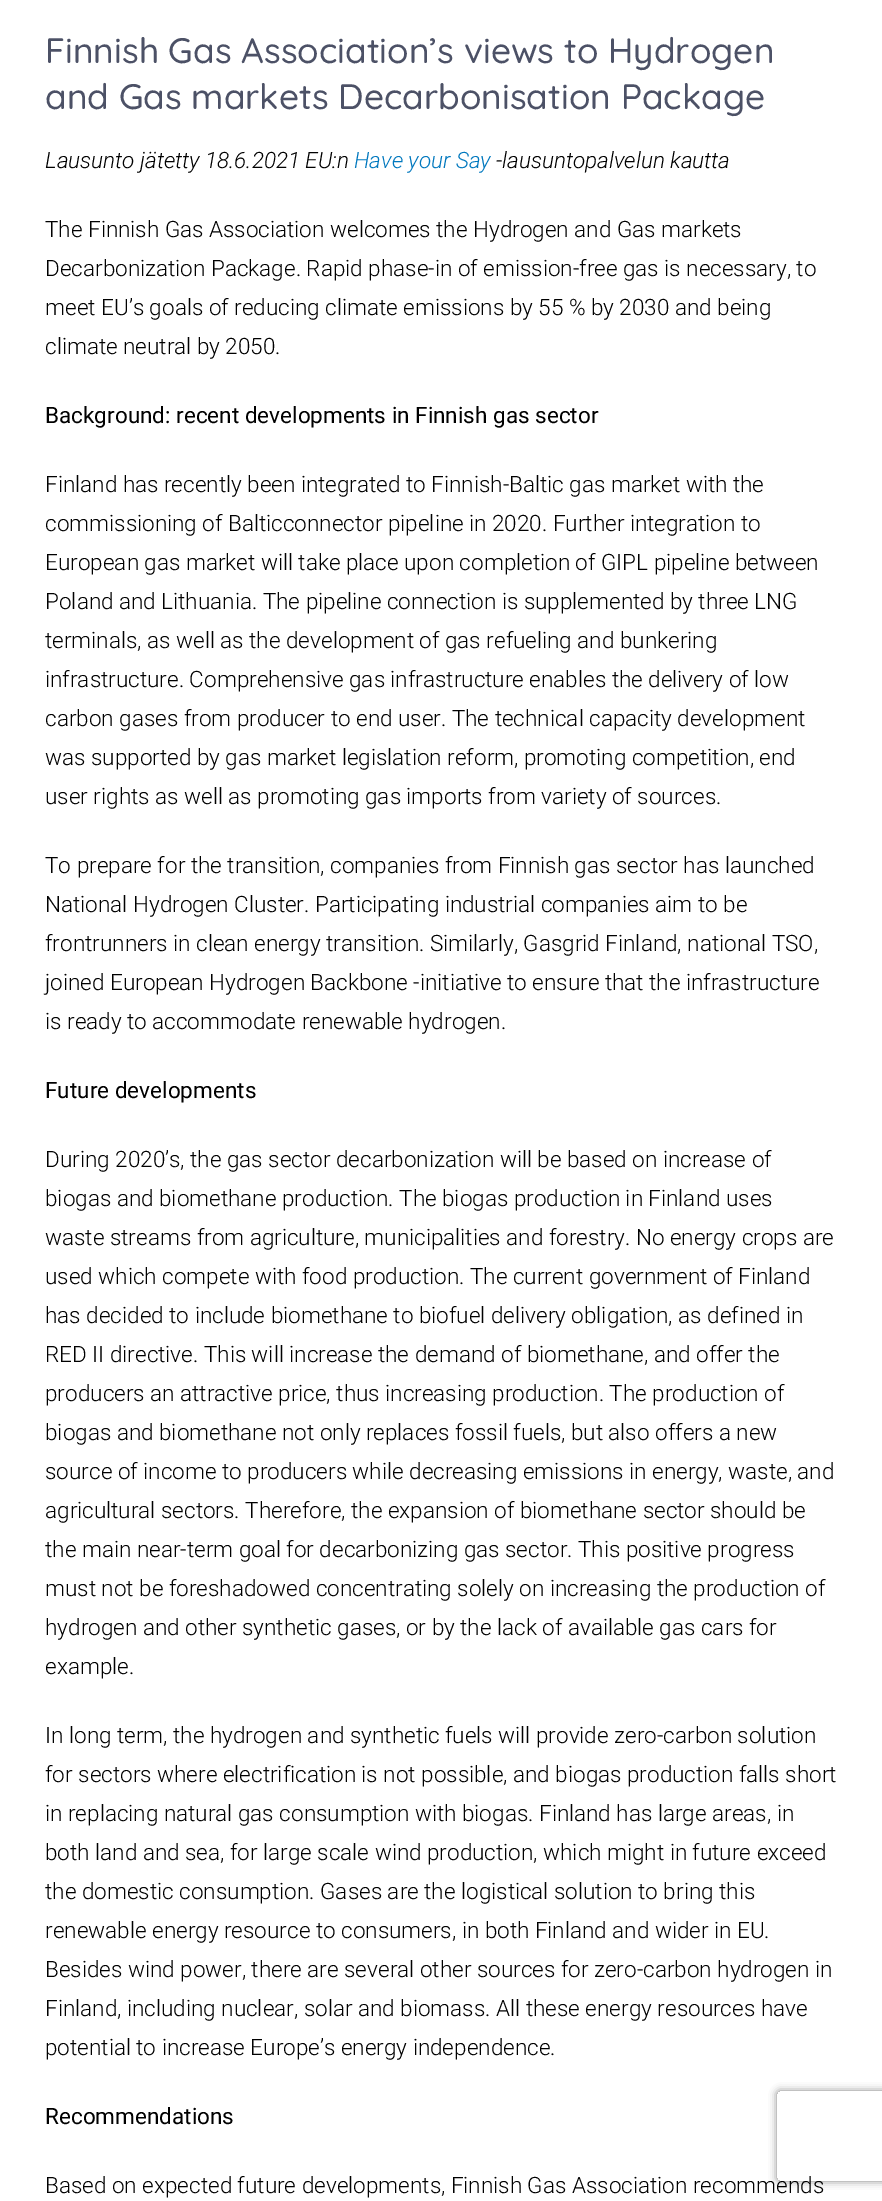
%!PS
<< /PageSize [882 2201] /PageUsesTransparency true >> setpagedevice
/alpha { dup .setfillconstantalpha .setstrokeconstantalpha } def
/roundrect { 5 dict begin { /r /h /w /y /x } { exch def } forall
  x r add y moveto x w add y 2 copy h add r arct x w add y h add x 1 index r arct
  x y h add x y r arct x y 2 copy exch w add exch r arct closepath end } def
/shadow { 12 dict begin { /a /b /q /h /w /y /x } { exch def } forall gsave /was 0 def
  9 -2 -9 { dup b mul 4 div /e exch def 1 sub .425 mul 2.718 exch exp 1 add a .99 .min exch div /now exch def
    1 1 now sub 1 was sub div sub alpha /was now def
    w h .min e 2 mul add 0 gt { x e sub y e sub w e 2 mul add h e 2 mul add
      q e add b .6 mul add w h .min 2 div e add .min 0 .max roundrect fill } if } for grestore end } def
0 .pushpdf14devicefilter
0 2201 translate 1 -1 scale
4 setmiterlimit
1 setgray
0 0 882 2201 rectfill
/Quicksand-Medium [35.3 0 0 -35.3 0 0] selectfont
0.298 0.318 0.4 setrgbcolor
45 63 moveto (Finnish Gas Association’s views to Hydrogen) show
45 109 moveto (and Gas markets Decarbonisation Package) show
/Roboto-LightItalic [22.5 0 0 -22.5 0 0] selectfont
0 setgray
45 168 moveto (Lausunto jätetty 18.6.2021 EU:n) show
0.004 0.471 0.745 setrgbcolor
354 168 moveto (Have your Say) show
0 setgray
496 168 moveto (-lausuntopalvelun kautta) show
/Roboto-Light [22.5 0 0 -22.5 0 0] selectfont
45 237 moveto (The Finnish Gas Association welcomes the Hydrogen and Gas markets) show
45 276 moveto (Decarbonization Package. Rapid phase-in of emission-free gas is necessary, to) show
45 315 moveto (meet EU’s goals of reducing climate emissions by 55 % by 2030 and being) show
45 354 moveto (climate neutral by 2050.) show
/Roboto-Regular [22.5 0 0 -22.5 0 0] selectfont
45 423 moveto (Background: recent developments in Finnish gas sector) show
/Roboto-Light [22.5 0 0 -22.5 0 0] selectfont
45 492 moveto (Finland has recently been integrated to Finnish-Baltic gas market with the) show
45 531 moveto (commissioning of Balticconnector pipeline in 2020. Further integration to) show
45 570 moveto (European gas market will take place upon completion of GIPL pipeline between) show
45 609 moveto (Poland and Lithuania. The pipeline connection is supplemented by three LNG) show
45 648 moveto (terminals, as well as the development of gas refueling and bunkering) show
45 687 moveto (infrastructure. Comprehensive gas infrastructure enables the delivery of low) show
45 726 moveto (carbon gases from producer to end user. The technical capacity development) show
45 765 moveto (was supported by gas market legislation reform, promoting competition, end) show
45 804 moveto (user rights as well as promoting gas imports from variety of sources.) show
45 873 moveto (To prepare for the transition, companies from Finnish gas sector has launched) show
45 912 moveto (National Hydrogen Cluster. Participating industrial companies aim to be) show
45 951 moveto (frontrunners in clean energy transition. Similarly, Gasgrid Finland, national TSO,) show
45 990 moveto (joined European Hydrogen Backbone -initiative to ensure that the infrastructure) show
45 1029 moveto (is ready to accommodate renewable hydrogen.) show
/Roboto-Regular [22.5 0 0 -22.5 0 0] selectfont
45 1098 moveto (Future developments) show
/Roboto-Light [22.5 0 0 -22.5 0 0] selectfont
45 1167 moveto (During 2020’s, the gas sector decarbonization will be based on increase of) show
45 1206 moveto (biogas and biomethane production. The biogas production in Finland uses) show
45 1245 moveto (waste streams from agriculture, municipalities and forestry. No energy crops are) show
45 1284 moveto (used which compete with food production. The current government of Finland) show
45 1323 moveto (has decided to include biomethane to biofuel delivery obligation, as defined in) show
45 1362 moveto (RED II directive. This will increase the demand of biomethane, and offer the) show
45 1401 moveto (producers an attractive price, thus increasing production. The production of) show
45 1440 moveto (biogas and biomethane not only replaces fossil fuels, but also offers a new) show
45 1479 moveto (source of income to producers while decreasing emissions in energy, waste, and) show
45 1518 moveto (agricultural sectors. Therefore, the expansion of biomethane sector should be) show
45 1557 moveto (the main near-term goal for decarbonizing gas sector. This positive progress) show
45 1596 moveto (must not be foreshadowed concentrating solely on increasing the production of) show
45 1635 moveto (hydrogen and other synthetic gases, or by the lack of available gas cars for) show
45 1674 moveto (example.) show
45 1743 moveto (In long term, the hydrogen and synthetic fuels will provide zero-carbon solution) show
45 1782 moveto (for sectors where electrification is not possible, and biogas production falls short) show
45 1821 moveto (in replacing natural gas consumption with biogas. Finland has large areas, in) show
45 1860 moveto (both land and sea, for large scale wind production, which might in future exceed) show
45 1899 moveto (the domestic consumption. Gases are the logistical solution to bring this) show
45 1938 moveto (renewable energy resource to consumers, in both Finland and wider in EU.) show
45 1977 moveto (Besides wind power, there are several other sources for zero-carbon hydrogen in) show
45 2016 moveto (Finland, including nuclear, solar and biomass. All these energy resources have) show
45 2055 moveto (potential to increase Europe’s energy independence.) show
/Roboto-Regular [22.5 0 0 -22.5 0 0] selectfont
45 2124 moveto (Recommendations) show
gsave
newpath 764 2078 moveto 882 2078 lineto 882 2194 lineto 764 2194 lineto closepath 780 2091 moveto 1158 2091 lineto 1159.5 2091 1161 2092.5 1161 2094 curveto 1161 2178 lineto 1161 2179.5 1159.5 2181 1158 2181 curveto 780 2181 lineto 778.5 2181 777 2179.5 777 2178 curveto 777 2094 lineto 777 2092.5 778.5 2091 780 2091 curveto closepath eoclip newpath
0.502 setgray
777 2091 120 90 3 4 1 shadow
grestore
/Roboto-Light [22.5 0 0 -22.5 0 0] selectfont
45 2193 moveto (Based on expected future developments, Finnish Gas Association recommends) show
.poppdf14devicefilter showpage
